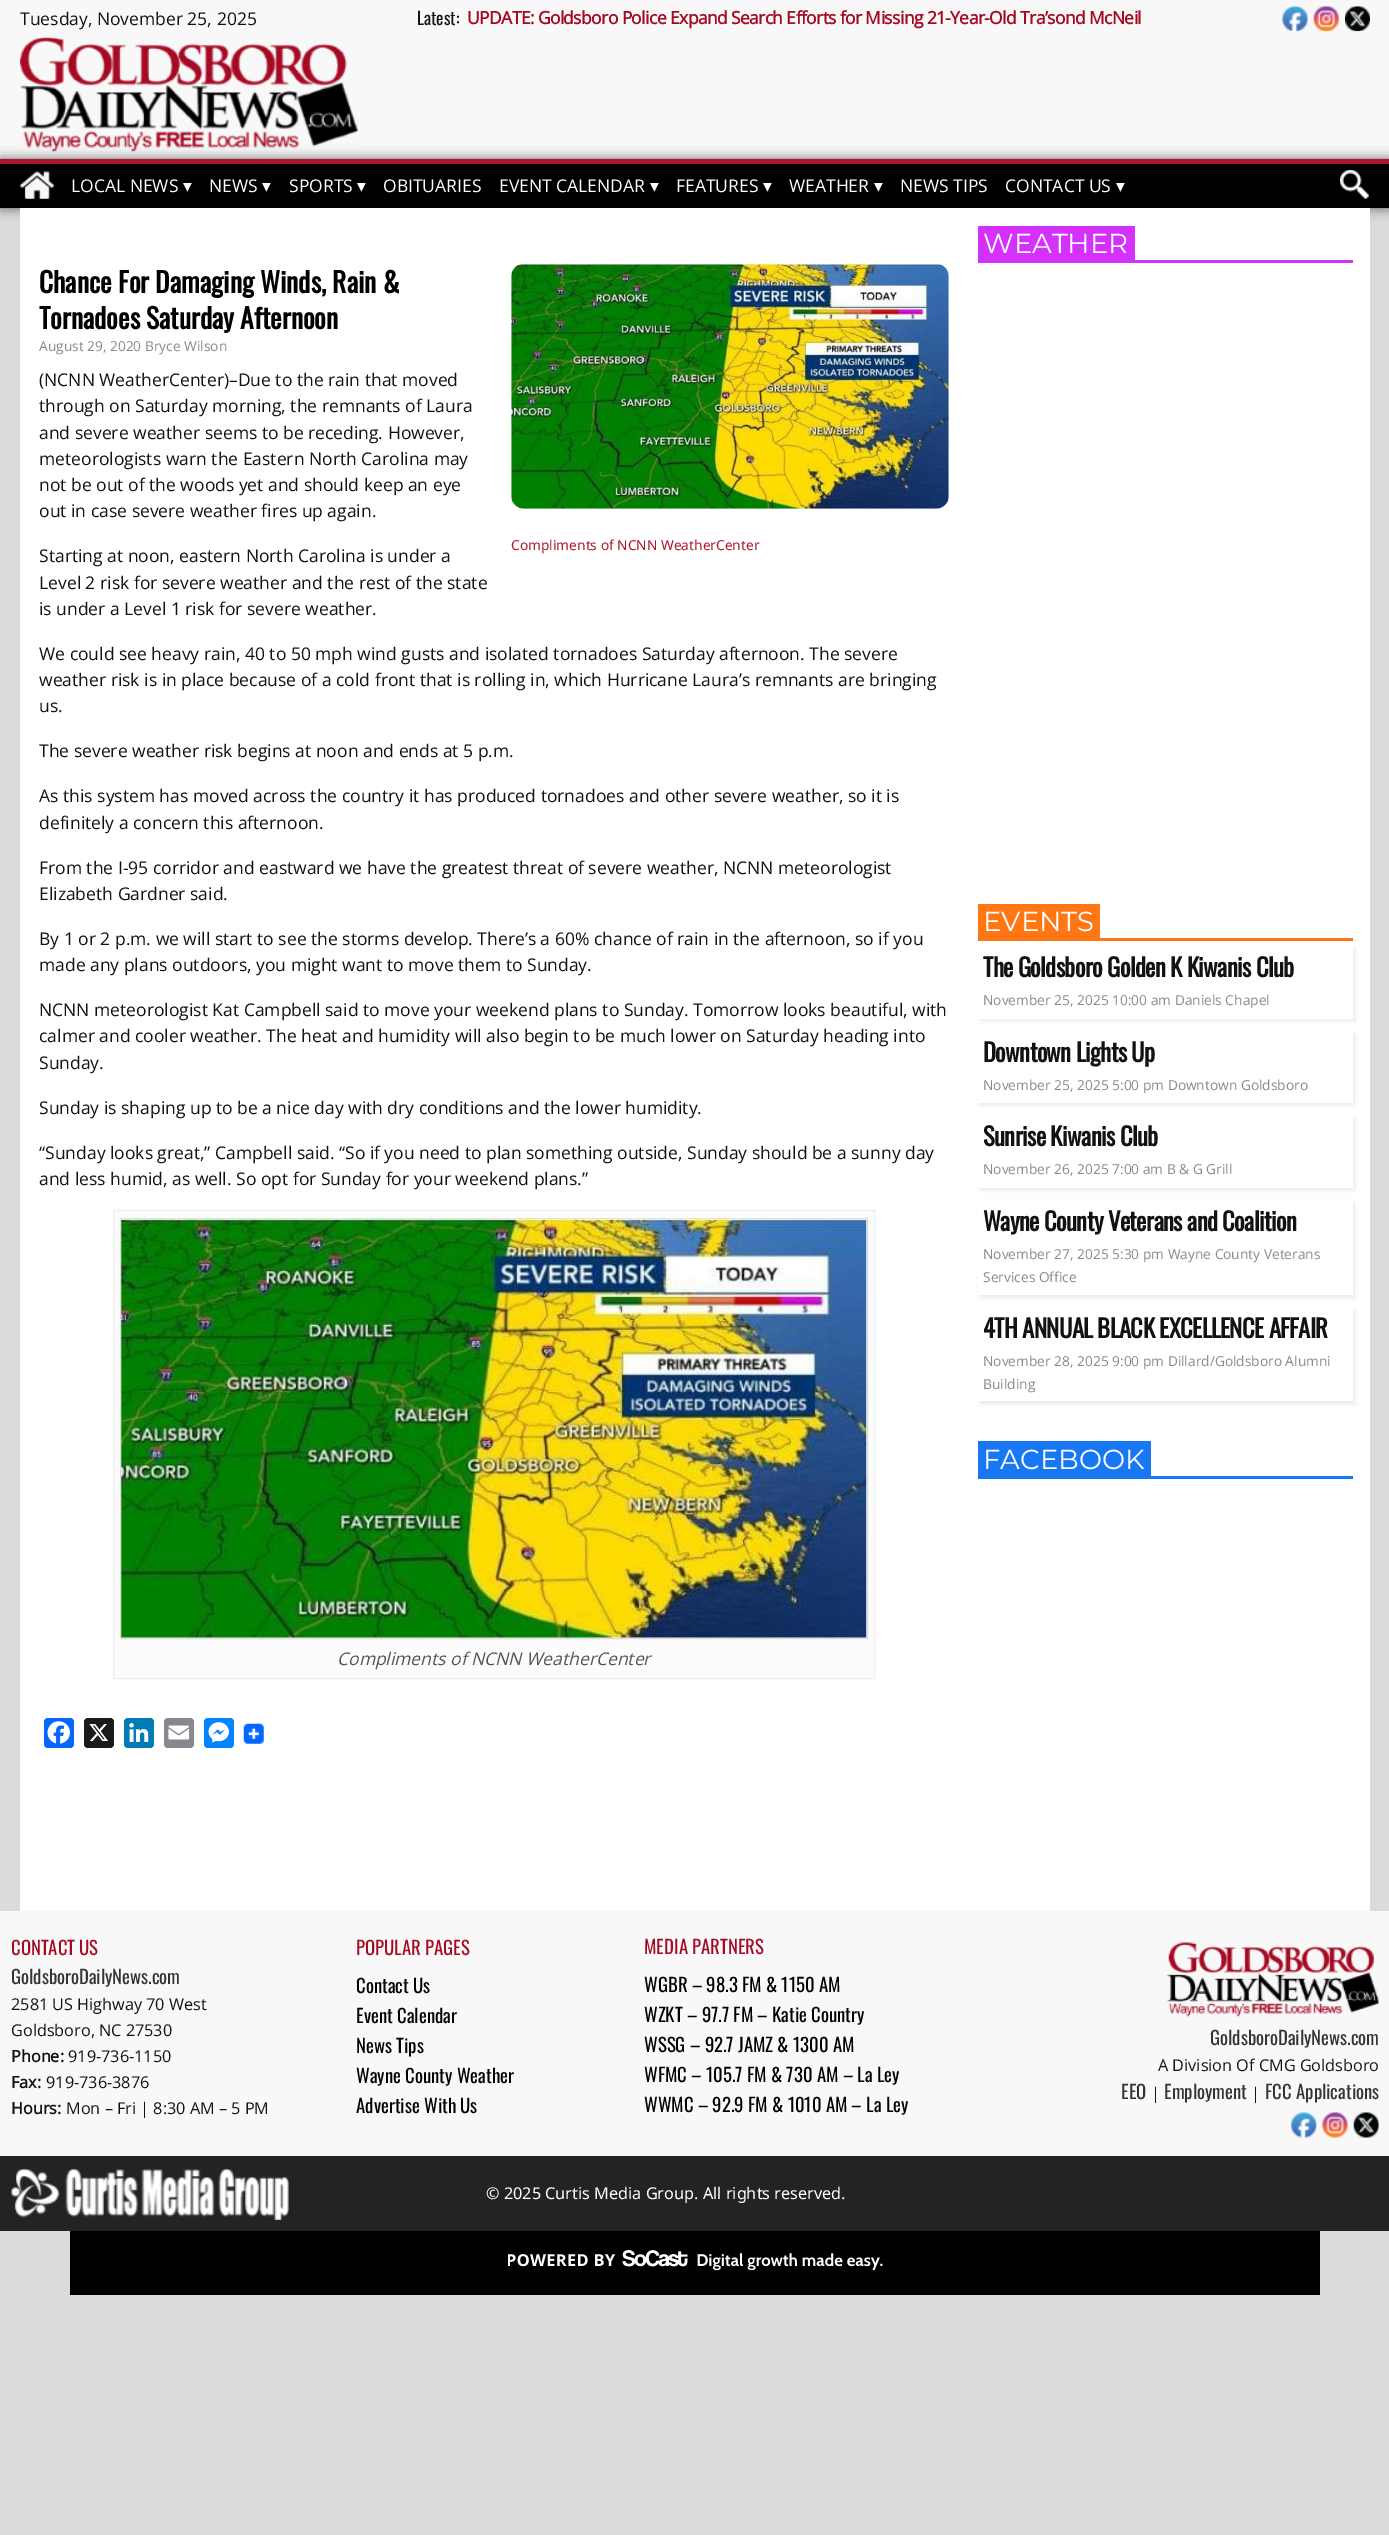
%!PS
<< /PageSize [1389 2535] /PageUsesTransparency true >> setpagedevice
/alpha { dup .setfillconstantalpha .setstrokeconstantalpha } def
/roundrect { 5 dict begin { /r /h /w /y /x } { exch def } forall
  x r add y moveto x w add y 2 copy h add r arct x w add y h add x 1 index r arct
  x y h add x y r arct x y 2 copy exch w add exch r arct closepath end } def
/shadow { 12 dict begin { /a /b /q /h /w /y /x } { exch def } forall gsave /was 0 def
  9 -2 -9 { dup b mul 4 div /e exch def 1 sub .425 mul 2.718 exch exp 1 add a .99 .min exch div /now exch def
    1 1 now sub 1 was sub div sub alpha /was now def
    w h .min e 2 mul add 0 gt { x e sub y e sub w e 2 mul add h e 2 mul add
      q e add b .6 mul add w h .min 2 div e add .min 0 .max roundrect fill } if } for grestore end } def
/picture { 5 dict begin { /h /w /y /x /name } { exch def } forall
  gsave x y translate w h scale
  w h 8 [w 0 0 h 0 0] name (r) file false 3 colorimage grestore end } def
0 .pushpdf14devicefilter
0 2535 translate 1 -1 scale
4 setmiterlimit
0.859 setgray
0 0 1389 2535 rectfill
0.973 setgray
0 0 1389 159 rectfill
/OpenSans-Regular [17.5 0 0 -17.5 0 0] selectfont
0.071 setgray
20 25 moveto (Tuesday, November 25, 2025) show
0 setgray
0 159 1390 49 0 6 0.6 shadow
(img1.rgb) 20 37 338 115 picture
/Oswald-Regular [17.5 0 0 -17.5 0 0] selectfont
0.071 setgray
417 25 moveto (Latest:) show
/OpenSans-Bold [17.5 0 0 -17.5 0 0] selectfont
0.647 0.035 0.137 setrgbcolor
467 24 moveto -0.62 0 (UPDATE: Goldsboro Police Expand Search Efforts for Missing 21-Year-Old Tra’sond McNeil) ashow
(img2.rgb) 1282 6 26 26 picture
(img3.rgb) 1313 6 26 26 picture
(img4.rgb) 1345 6 25 26 picture
0 setgray
0 164 1389 44 rectfill
0.663 0.078 0.173 setrgbcolor
0 159 1389 5 rectfill
(img5.rgb) 20 171 34 28 picture
/OpenSans-Regular [17.5 0 0 -17.5 0 0] selectfont
1 setgray
71 192 moveto (LOCAL NEWS) show
/DejaVuSans-Regular [17.5 0 0 -17.5 0 0] selectfont
183 192 moveto (▾) show
/OpenSans-Regular [17.5 0 0 -17.5 0 0] selectfont
209 192 moveto (NEWS) show
/DejaVuSans-Regular [17.5 0 0 -17.5 0 0] selectfont
262 192 moveto (▾) show
/OpenSans-Regular [17.5 0 0 -17.5 0 0] selectfont
289 192 moveto (SPORTS) show
/DejaVuSans-Regular [17.5 0 0 -17.5 0 0] selectfont
357 192 moveto (▾) show
/OpenSans-Regular [17.5 0 0 -17.5 0 0] selectfont
383 192 moveto (OBITUARIES) show
499 192 moveto (EVENT CALENDAR) show
/DejaVuSans-Regular [17.5 0 0 -17.5 0 0] selectfont
650 192 moveto (▾) show
/OpenSans-Regular [17.5 0 0 -17.5 0 0] selectfont
676 192 moveto (FEATURES) show
/DejaVuSans-Regular [17.5 0 0 -17.5 0 0] selectfont
763 192 moveto (▾) show
/OpenSans-Regular [17.5 0 0 -17.5 0 0] selectfont
789 192 moveto (WEATHER) show
/DejaVuSans-Regular [17.5 0 0 -17.5 0 0] selectfont
874 192 moveto (▾) show
/OpenSans-Regular [17.5 0 0 -17.5 0 0] selectfont
900 192 moveto (NEWS TIPS) show
1005 192 moveto (CONTACT US) show
/DejaVuSans-Regular [17.5 0 0 -17.5 0 0] selectfont
1116 192 moveto (▾) show
(img6.rgb) 1340 170 29 29 picture
20 208 1350 1703 rectfill
/Oswald-Bold [27.5 0 0 -27.5 0 0] selectfont
0 setgray
39 293 moveto (Chance For Damaging Winds, Rain &) show
39 329 moveto (Tornadoes Saturday Afternoon) show
/OpenSans-Regular [13.75 0 0 -13.75 0 0] selectfont
0.549 0.533 0.529 setrgbcolor
39 351 moveto (August 29, 2020 Bryce Wilson) show
/OpenSans-Regular [17.5 0 0 -17.5 0 0] selectfont
0.071 setgray
39 386 moveto (\(NCNN WeatherCenter\)–Due to the rain that moved) show
39 412 moveto (through on Saturday morning, the remnants of Laura) show
39 439 moveto (and severe weather seems to be receding. However,) show
39 465 moveto (meteorologists warn the Eastern North Carolina may) show
39 491 moveto (not be out of the woods yet and should keep an eye) show
39 517 moveto (out in case severe weather fires up again.) show
39 562 moveto (Starting at noon, eastern North Carolina is under a) show
39 589 moveto (Level 2 risk for severe weather and the rest of the state) show
39 615 moveto (is under a Level 1 risk for severe weather.) show
39 660 moveto (We could see heavy rain, 40 to 50 mph wind gusts and isolated tornadoes Saturday afternoon. The severe) show
39 686 moveto (weather risk is in place because of a cold front that is rolling in, which Hurricane Laura’s remnants are bringing) show
39 712 moveto (us.) show
39 757 moveto (The severe weather risk begins at noon and ends at 5 p.m.) show
39 802 moveto (As this system has moved across the country it has produced tornadoes and other severe weather, so it is) show
39 829 moveto (definitely a concern this afternoon.) show
39 874 moveto (From the I-95 corridor and eastward we have the greatest threat of severe weather, NCNN meteorologist) show
39 900 moveto (Elizabeth Gardner said.) show
39 945 moveto (By 1 or 2 p.m. we will start to see the storms develop. There’s a 60% chance of rain in the afternoon, so if you) show
39 971 moveto (made any plans outdoors, you might want to move them to Sunday.) show
39 1016 moveto (NCNN meteorologist Kat Campbell said to move your weekend plans to Sunday. Tomorrow looks beautiful, with) show
39 1042 moveto (calmer and cooler weather. The heat and humidity will also begin to be much lower on Saturday heading into) show
39 1069 moveto (Sunday.) show
39 1114 moveto (Sunday is shaping up to be a nice day with dry conditions and the lower humidity.) show
39 1159 moveto (“Sunday looks great,” Campbell said. “So if you need to plan something outside, Sunday should be a sunny day) show
39 1185 moveto (and less humid, as well. So opt for Sunday for your weekend plans.”) show
0.988 setgray
newpath 113.5 1210.5 moveto 874.5 1210.5 lineto 874.5 1678.5 lineto 113.5 1678.5 lineto closepath gsave fill grestore
0.933 setgray
stroke
0.867 setgray
120.5 1218.5 747 420 rectstroke
(img7.rgb) 121 1218 746 420 picture
/OpenSans-Italic [17.5 0 0 -17.5 0 0] selectfont
0.333 setgray
337 1665 moveto (Compliments of NCNN WeatherCenter) show
0.031 0.4 1 setrgbcolor
44 1718 30 30 4 roundrect fill
(img8.rgb) 47 1721 23 23 picture
0.102 setgray
84 1718 30 30 4 roundrect fill
(img9.rgb) 89 1724 19 17 picture
0 0.482 0.71 setrgbcolor
124 1718 30 30 4 roundrect fill
(img10.rgb) 129 1723 20 19 picture
0.533 0.537 0.565 setrgbcolor
164 1718 30 30 4 roundrect fill
(img11.rgb) 168 1725 22 15 picture
0 0.518 1 setrgbcolor
204 1718 30 30 4 roundrect fill
(img12.rgb) 208 1722 21 21 picture
(img13.rgb) 243 1723 21 21 picture
(img14.rgb) 511 263 438 246 picture
/NotoSans-Regular [13.75 0 0 -13.75 0 0] selectfont
0.667 0.086 0.18 setrgbcolor
511 550 moveto (Compliments of NCNN WeatherCenter) show
0.831 0.192 0.992 setrgbcolor
978 260 375 3 rectfill
978 226 157 34 rectfill
/Montserrat-Thin [27.5 0 0 -27.5 0 0] selectfont
1 setgray
983 253 moveto (WEATHER) show
0.996 0.467 0.078 setrgbcolor
978 938 375 3 rectfill
978 904 122 34 rectfill
1 setgray
983 931 moveto (EVENTS) show
gsave
newpath 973 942 moveto 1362 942 lineto 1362 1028 lineto 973 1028 lineto closepath 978 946 moveto 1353 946 lineto 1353 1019 lineto 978 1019 lineto closepath eoclip newpath
0.918 setgray
980 949 375 72 0 2 1 shadow
grestore
/Oswald-Bold [24.75 0 0 -24.75 0 0] selectfont
0.071 setgray
983 977 moveto -0.62 0 (The Goldsboro Golden K Kiwanis Club) ashow
/OpenSans-Regular [13.75 0 0 -13.75 0 0] selectfont
0.549 0.533 0.529 setrgbcolor
983 1005 moveto (November 25, 2025 10:00 am Daniels Chapel) show
gsave
newpath 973 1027 moveto 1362 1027 lineto 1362 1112 lineto 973 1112 lineto closepath 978 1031 moveto 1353 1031 lineto 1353 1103 lineto 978 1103 lineto closepath eoclip newpath
0.918 setgray
980 1034 375 71 0 2 1 shadow
grestore
/Oswald-Bold [24.75 0 0 -24.75 0 0] selectfont
0.071 setgray
983 1062 moveto -0.62 0 (Downtown Lights Up) ashow
/OpenSans-Regular [13.75 0 0 -13.75 0 0] selectfont
0.549 0.533 0.529 setrgbcolor
983 1090 moveto (November 25, 2025 5:00 pm Downtown Goldsboro) show
gsave
newpath 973 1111 moveto 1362 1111 lineto 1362 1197 lineto 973 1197 lineto closepath 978 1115 moveto 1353 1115 lineto 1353 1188 lineto 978 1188 lineto closepath eoclip newpath
0.918 setgray
980 1118 375 72 0 2 1 shadow
grestore
/Oswald-Bold [24.75 0 0 -24.75 0 0] selectfont
0.071 setgray
983 1146 moveto -0.62 0 (Sunrise Kiwanis Club) ashow
/OpenSans-Regular [13.75 0 0 -13.75 0 0] selectfont
0.549 0.533 0.529 setrgbcolor
983 1174 moveto (November 26, 2025 7:00 am B & G Grill) show
gsave
newpath 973 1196 moveto 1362 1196 lineto 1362 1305 lineto 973 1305 lineto closepath 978 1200 moveto 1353 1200 lineto 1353 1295 lineto 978 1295 lineto closepath eoclip newpath
0.918 setgray
980 1203 375 95 0 2 1 shadow
grestore
/Oswald-Bold [24.75 0 0 -24.75 0 0] selectfont
0.071 setgray
983 1231 moveto -0.62 0 (Wayne County Veterans and Coalition) ashow
/OpenSans-Regular [13.75 0 0 -13.75 0 0] selectfont
0.549 0.533 0.529 setrgbcolor
983 1259 moveto (November 27, 2025 5:30 pm Wayne County Veterans) show
983 1282 moveto (Services Office) show
gsave
newpath 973 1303 moveto 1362 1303 lineto 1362 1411 lineto 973 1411 lineto closepath 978 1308 moveto 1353 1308 lineto 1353 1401 lineto 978 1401 lineto closepath eoclip newpath
0.918 setgray
980 1310 375 94 0 2 1 shadow
grestore
/Oswald-Bold [24.75 0 0 -24.75 0 0] selectfont
0.071 setgray
983 1338 moveto -0.62 0 (4TH ANNUAL BLACK EXCELLENCE AFFAIR) ashow
/OpenSans-Regular [13.75 0 0 -13.75 0 0] selectfont
0.549 0.533 0.529 setrgbcolor
983 1366 moveto (November 28, 2025 9:00 pm Dillard/Goldsboro Alumni) show
983 1389 moveto (Building) show
0.094 0.467 0.949 setrgbcolor
978 1476 375 3 rectfill
978 1441 173 35 rectfill
/Montserrat-Thin [27.5 0 0 -27.5 0 0] selectfont
1 setgray
983 1469 moveto (FACEBOOK) show
0.973 setgray
0 1911 1389 245 rectfill
/Oswald-Regular [18.75 0 0 -18.75 0 0] selectfont
0.647 0.035 0.137 setrgbcolor
11 1955 moveto (CONTACT US) show
0.2 setgray
11 1984 moveto (GoldsboroDailyNews.com) show
/OpenSans-Regular [16.25 0 0 -16.25 0 0] selectfont
0.071 setgray
11 2010 moveto (2581 US Highway 70 West) show
11 2036 moveto (Goldsboro, NC 27530) show
/OpenSans-Bold [16.25 0 0 -16.25 0 0] selectfont
11 2062 moveto (Phone:) show
/OpenSans-Regular [16.25 0 0 -16.25 0 0] selectfont
68 2062 moveto (919-736-1150) show
/OpenSans-Bold [16.25 0 0 -16.25 0 0] selectfont
11 2088 moveto (Fax:) show
/OpenSans-Regular [16.25 0 0 -16.25 0 0] selectfont
46 2088 moveto (919-736-3876) show
/OpenSans-Bold [16.25 0 0 -16.25 0 0] selectfont
11 2114 moveto (Hours:) show
/OpenSans-Regular [16.25 0 0 -16.25 0 0] selectfont
66 2114 moveto (Mon – Fri | 8:30 AM – 5 PM) show
/Oswald-Regular [18.75 0 0 -18.75 0 0] selectfont
0.647 0.035 0.137 setrgbcolor
356 1955 moveto (POPULAR PAGES) show
0 setgray
356 1993 moveto (Contact Us) show
356 2023 moveto (Event Calendar) show
356 2053 moveto (News Tips) show
356 2083 moveto (Wayne County Weather) show
356 2113 moveto (Advertise With Us) show
0.647 0.035 0.137 setrgbcolor
644 1954 moveto (MEDIA PARTNERS) show
0 setgray
644 1992 moveto (WGBR – 98.3 FM & 1150 AM) show
644 2022 moveto (WZKT – 97.7 FM – Katie Country) show
644 2052 moveto (WSSG – 92.7 JAMZ & 1300 AM) show
644 2082 moveto (WFMC – 105.7 FM & 730 AM – La Ley) show
644 2112 moveto (WWMC – 92.9 FM & 1010 AM – La Ley) show
(img15.rgb) 1166 1942 213 75 picture
0.2 setgray
1210 2045 moveto (GoldsboroDailyNews.com) show
/OpenSans-Regular [16.25 0 0 -16.25 0 0] selectfont
0.071 setgray
1158 2071 moveto (A Division Of CMG Goldsboro) show
/Oswald-Regular [18.75 0 0 -18.75 0 0] selectfont
0.2 setgray
1121 2099 moveto (EEO) show
/OpenSans-Regular [16.25 0 0 -16.25 0 0] selectfont
0.071 setgray
1151 2099 moveto (|) show
/Oswald-Regular [18.75 0 0 -18.75 0 0] selectfont
0.2 setgray
1164 2099 moveto (Employment) show
/OpenSans-Regular [16.25 0 0 -16.25 0 0] selectfont
0.071 setgray
1251 2099 moveto (|) show
/Oswald-Regular [18.75 0 0 -18.75 0 0] selectfont
0.2 setgray
1265 2099 moveto (FCC Applications) show
(img16.rgb) 1291 2112 26 26 picture
(img17.rgb) 1322 2112 26 26 picture
(img18.rgb) 1353 2112 26 26 picture
0.137 setgray
0 2156 1389 75 rectfill
(img19.rgb) 11 2168 278 52 picture
/NotoSans-Regular [16.25 0 0 -16.25 0 0] selectfont
1 setgray
486 2199 moveto (© 2025 Curtis Media Group. All rights reserved.) show
0 setgray
70 2231 1250 64 rectfill
(img20.rgb) 508 2250 375 21 picture
.poppdf14devicefilter showpage
